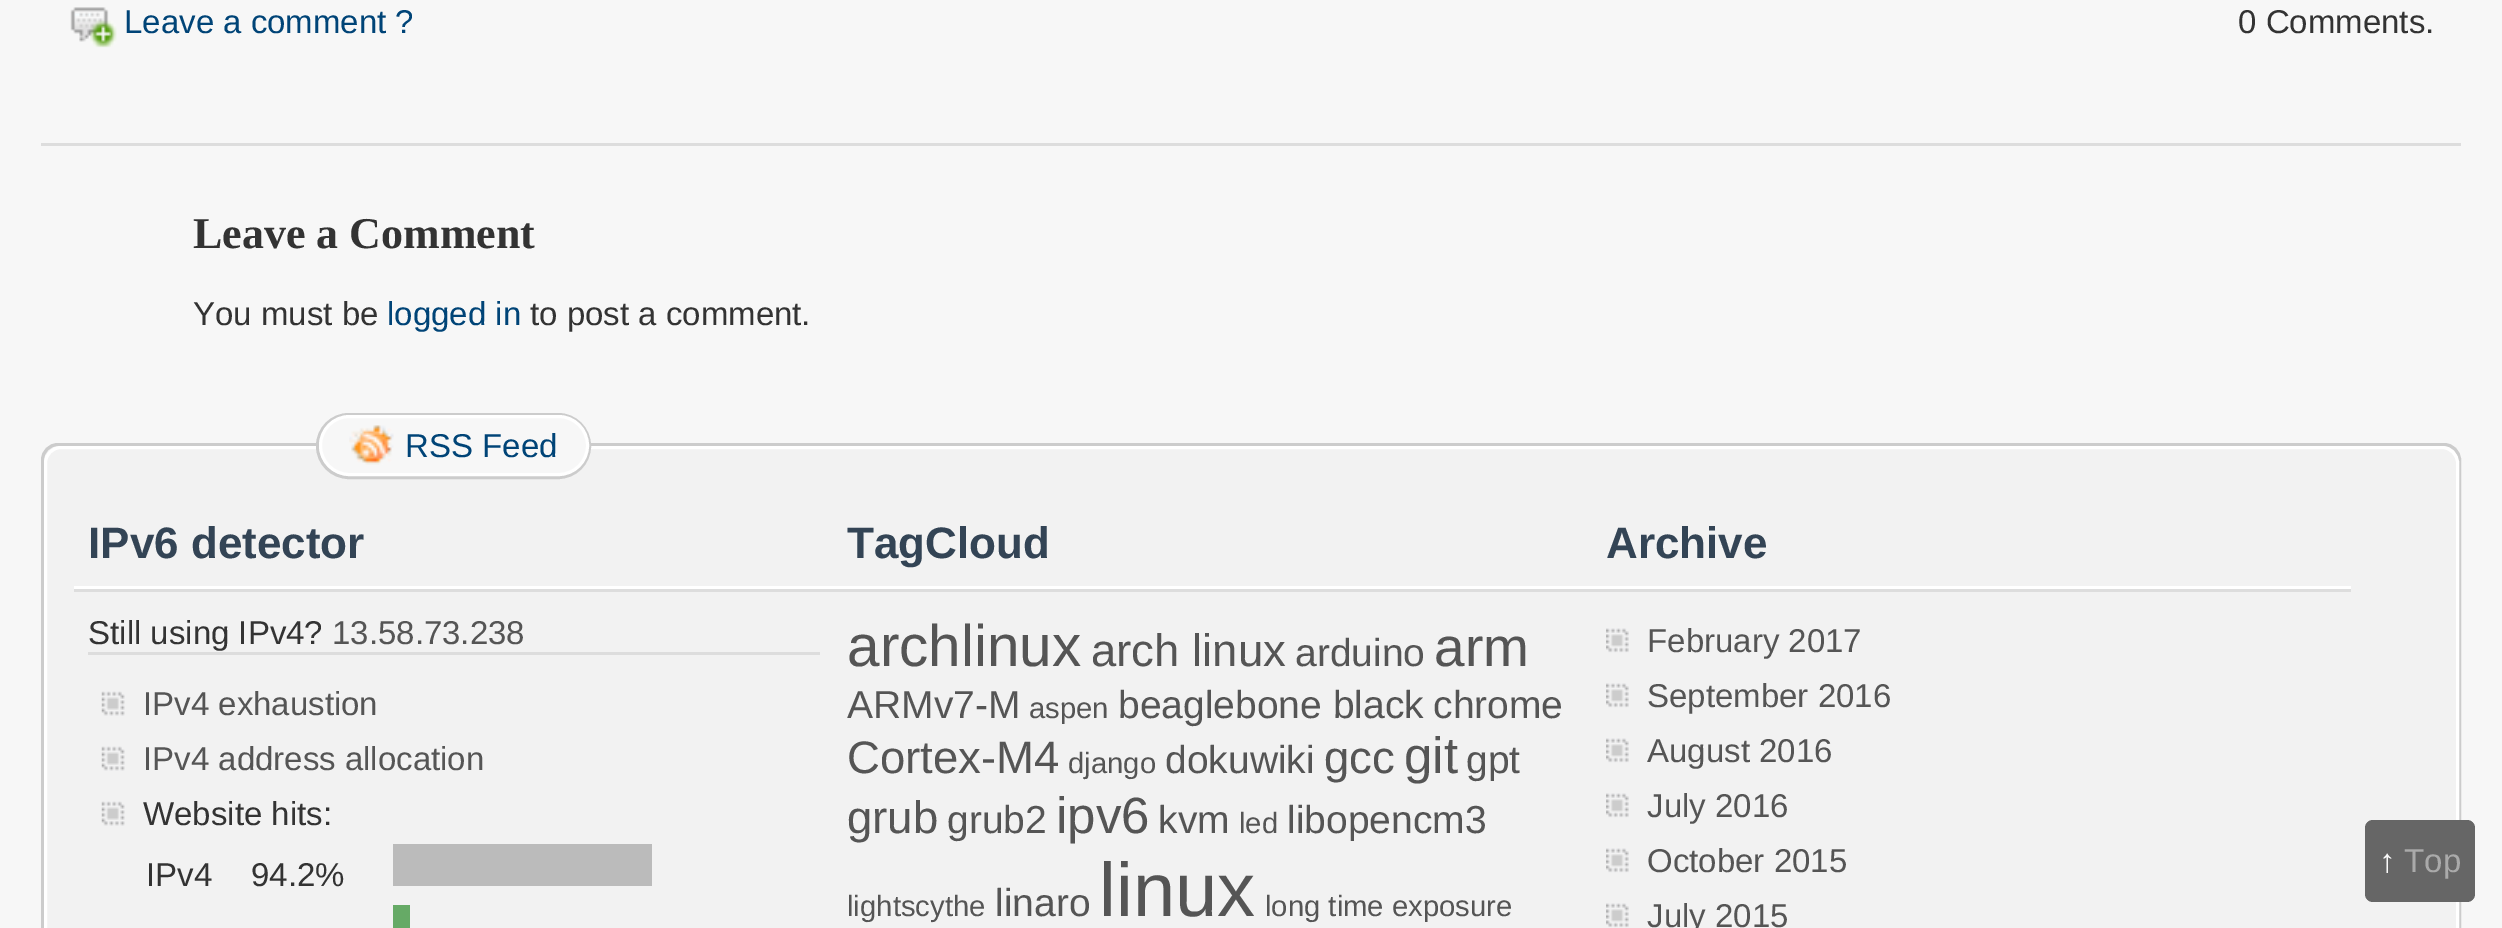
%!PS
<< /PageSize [2502 928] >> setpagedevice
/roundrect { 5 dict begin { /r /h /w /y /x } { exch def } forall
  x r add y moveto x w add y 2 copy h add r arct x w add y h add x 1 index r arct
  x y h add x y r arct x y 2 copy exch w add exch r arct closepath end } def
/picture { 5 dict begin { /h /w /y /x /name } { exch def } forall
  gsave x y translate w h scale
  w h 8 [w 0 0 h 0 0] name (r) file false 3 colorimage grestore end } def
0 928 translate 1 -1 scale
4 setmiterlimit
0.969 setgray
0 0 2502 928 rectfill
(img1.rgb) 70 7 47 41 picture
/LiberationSans-Regular [33 0 0 -33 0 0] selectfont
0 0.267 0.467 setrgbcolor
124 33 moveto (Leave a comment ?) show
0.2 setgray
2238 33 moveto (0 Comments.) show
0.867 setgray
41 143 2420 3 rectfill
/LiberationSerif-Bold [44 0 0 -44 0 0] selectfont
0.2 setgray
193 248 moveto (Leave a Comment) show
/LiberationSans-Regular [33 0 0 -33 0 0] selectfont
193 325 moveto (You must be) show
0 0.267 0.467 setrgbcolor
387 325 moveto (logged in) show
0.2 setgray
530 325 moveto (to post a comment.) show
0.949 setgray
42.5 444.5 2417 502 15.5 roundrect gsave fill grestore
0.8 setgray
3 setlinewidth
stroke
1 setgray
45.5 447.5 2412 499 15.5 roundrect stroke
0.8 setgray
317.5 414.5 272 63 31.5 roundrect stroke
0.969 setgray
320.5 416.5 267 58 29 roundrect gsave fill grestore
1 setgray
stroke
(img2.rgb) 349 425 45 40 picture
0 0.267 0.467 setrgbcolor
405 457 moveto (RSS Feed) show
1 setgray
74 586 2277 3 rectfill
/LiberationSans-Bold [44 0 0 -44 0 0] selectfont
0.2 0.267 0.333 setrgbcolor
88 558 moveto (IPv6 detector) show
0.867 setgray
74 589 2277 3 rectfill
/LiberationSans-Regular [33 0 0 -33 0 0] selectfont
0.2 setgray
88 644 moveto (Still using IPv4?) show
0.333 setgray
332 644 moveto (13.58.73.238) show
0.867 setgray
88 652 732 3 rectfill
(img3.rgb) 101 691 24 25 picture
0.333 setgray
143 715 moveto (IPv4 exhaustion) show
(img3.rgb) 101 746 24 25 picture
143 770 moveto (IPv4 address allocation) show
(img3.rgb) 101 801 24 25 picture
0.2 setgray
143 825 moveto (Website hits:) show
146 886 moveto (IPv4) show
251 886 moveto (94.2%) show
0.733 setgray
393 844 259 42 rectfill
0.4 0.667 0.4 setrgbcolor
393 905 17 23 rectfill
/LiberationSans-Bold [44 0 0 -44 0 0] selectfont
0.2 0.267 0.333 setrgbcolor
847 558 moveto (TagCloud) show
/LiberationSans-Regular [58.5 0 0 -58.5 0 0] selectfont
0.333 setgray
847 666 moveto (archlinux) show
/LiberationSans-Regular [45.5 0 0 -45.5 0 0] selectfont
1091 666 moveto (arch linux) show
/LiberationSans-Regular [39 0 0 -39 0 0] selectfont
1295 666 moveto (arduino) show
/LiberationSans-Regular [55 0 0 -55 0 0] selectfont
1434 666 moveto (arm) show
/LiberationSans-Regular [39 0 0 -39 0 0] selectfont
847 718 moveto (ARMv7-M) show
/LiberationSans-Regular [29.25 0 0 -29.25 0 0] selectfont
1029 718 moveto (aspen) show
/LiberationSans-Regular [39 0 0 -39 0 0] selectfont
1118 718 moveto (beaglebone black) show
1433 718 moveto (chrome) show
/LiberationSans-Regular [45.5 0 0 -45.5 0 0] selectfont
847 773 moveto (Cortex-M4) show
/LiberationSans-Regular [29.25 0 0 -29.25 0 0] selectfont
1068 773 moveto (django) show
/LiberationSans-Regular [39 0 0 -39 0 0] selectfont
1165 773 moveto (dokuwiki) show
/LiberationSans-Regular [45.5 0 0 -45.5 0 0] selectfont
1324 773 moveto (gcc) show
/LiberationSans-Regular [51 0 0 -51 0 0] selectfont
1404 773 moveto (git) show
/LiberationSans-Regular [39 0 0 -39 0 0] selectfont
1466 773 moveto (gpt) show
/LiberationSans-Regular [45.5 0 0 -45.5 0 0] selectfont
847 833 moveto (grub) show
/LiberationSans-Regular [39 0 0 -39 0 0] selectfont
947 833 moveto (grub2) show
/LiberationSans-Regular [51 0 0 -51 0 0] selectfont
1056 833 moveto (ipv6) show
/LiberationSans-Regular [39 0 0 -39 0 0] selectfont
1158 833 moveto (kvm) show
/LiberationSans-Regular [29.25 0 0 -29.25 0 0] selectfont
1239 833 moveto (led) show
/LiberationSans-Regular [39 0 0 -39 0 0] selectfont
1287 833 moveto (libopencm3) show
/LiberationSans-Regular [29.25 0 0 -29.25 0 0] selectfont
847 916 moveto (lightscythe) show
/LiberationSans-Regular [39 0 0 -39 0 0] selectfont
995 916 moveto (linaro) show
/LiberationSans-Regular [76 0 0 -76 0 0] selectfont
1099 916 moveto (linux) show
/LiberationSans-Regular [29.25 0 0 -29.25 0 0] selectfont
1265 916 moveto (long time exposure) show
/LiberationSans-Bold [44 0 0 -44 0 0] selectfont
0.2 0.267 0.333 setrgbcolor
1606 558 moveto (Archive) show
(img4.rgb) 1606 628 23 25 picture
/LiberationSans-Regular [33 0 0 -33 0 0] selectfont
0.333 setgray
1647 652 moveto (February 2017) show
(img4.rgb) 1606 683 23 25 picture
1647 707 moveto (September 2016) show
(img4.rgb) 1606 738 23 25 picture
1647 762 moveto (August 2016) show
(img4.rgb) 1606 793 23 25 picture
1647 817 moveto (July 2016) show
(img4.rgb) 1606 848 23 25 picture
1647 872 moveto (October 2015) show
(img5.rgb) 1606 903 23 25 picture
1647 927 moveto (July 2015) show
0.4 setgray
2365 820 110 82 8 roundrect fill
/LiberationSans-Bold [33 0 0 -33 0 0] selectfont
0.98 setgray
2379 872 moveto (↑) show
/LiberationSans-Regular [33 0 0 -33 0 0] selectfont
0.667 setgray
2404 872 moveto (Top) show
showpage
